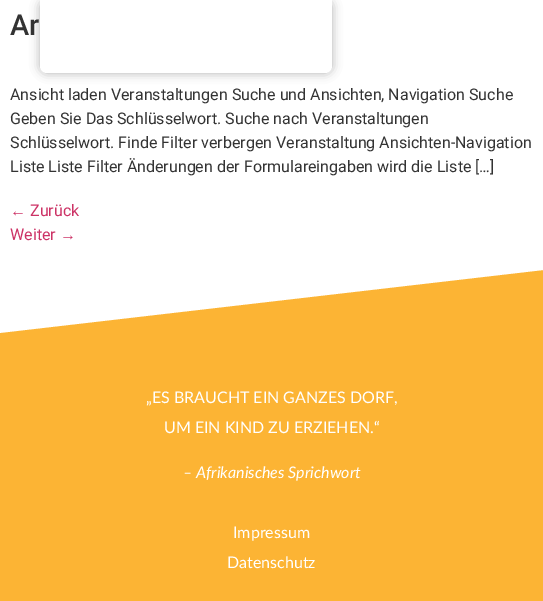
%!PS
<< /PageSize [543 601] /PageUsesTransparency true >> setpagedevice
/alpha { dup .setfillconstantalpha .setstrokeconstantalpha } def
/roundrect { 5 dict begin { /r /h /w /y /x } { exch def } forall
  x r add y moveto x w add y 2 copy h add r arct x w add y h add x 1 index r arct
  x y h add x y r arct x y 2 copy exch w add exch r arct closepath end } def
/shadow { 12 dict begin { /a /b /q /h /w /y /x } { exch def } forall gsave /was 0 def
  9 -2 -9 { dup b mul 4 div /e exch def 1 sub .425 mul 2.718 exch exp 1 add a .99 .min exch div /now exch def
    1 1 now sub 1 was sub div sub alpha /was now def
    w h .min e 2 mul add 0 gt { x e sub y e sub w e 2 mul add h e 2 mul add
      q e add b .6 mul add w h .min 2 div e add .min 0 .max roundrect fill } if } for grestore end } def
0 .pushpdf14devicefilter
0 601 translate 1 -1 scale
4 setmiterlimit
1 setgray
0 0 543 601 rectfill
0 setgray
40 0 292 73 7 5 0.31 shadow
1 setgray
newpath 40 0 moveto 332 0 lineto 332 66 lineto 332 70 329 73 325 73 curveto 47 73 lineto 43 73 40 70 40 66 curveto closepath fill
/Roboto-Medium [29 0 0 -29 0 0] selectfont
0.2 setgray
10 35 moveto (Ar) show
/Roboto-Regular [16 0 0 -16 0 0] selectfont
10 100 moveto (Ansicht laden Veranstaltungen Suche und Ansichten, Navigation Suche) show
10 124 moveto (Geben Sie Das Schlüsselwort. Suche nach Veranstaltungen) show
10 148 moveto (Schlüsselwort. Finde Filter verbergen Veranstaltung Ansichten-Navigation) show
10 172 moveto (Liste Liste Filter Änderungen der Formulareingaben wird die Liste […]) show
/LiberationSans-Regular [16 0 0 -16 0 0] selectfont
0.8 0.2 0.4 setrgbcolor
10 216 moveto (←) show
/Roboto-Regular [16 0 0 -16 0 0] selectfont
30 216 moveto (Zurück) show
10 240 moveto (Weiter) show
/LiberationSans-Regular [16 0 0 -16 0 0] selectfont
60 240 moveto (→) show
0.988 0.706 0.204 setrgbcolor
0 270 543 331 rectfill
1 setgray
newpath 543 270 moveto 543 266 lineto -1 266 lineto -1 333 lineto closepath fill
/Lato-Regular [16 0 0 -16 0 0] selectfont
146 403 moveto („ES BRAUCHT EIN GANZES DORF,) show
164 433 moveto (UM EIN KIND ZU ERZIEHEN.“) show
/Lato-Italic [16 0 0 -16 0 0] selectfont
183 478 moveto (– Afrikanisches Sprichwort) show
/Lato-Regular [16 0 0 -16 0 0] selectfont
233 538 moveto (Impressum) show
227 568 moveto (Datenschutz) show
.poppdf14devicefilter showpage
